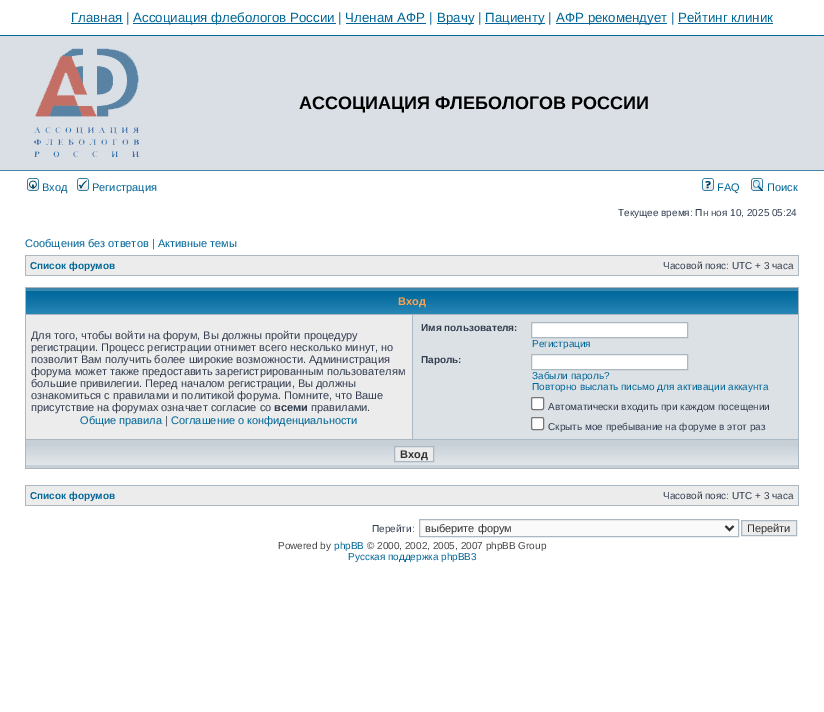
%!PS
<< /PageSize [824 712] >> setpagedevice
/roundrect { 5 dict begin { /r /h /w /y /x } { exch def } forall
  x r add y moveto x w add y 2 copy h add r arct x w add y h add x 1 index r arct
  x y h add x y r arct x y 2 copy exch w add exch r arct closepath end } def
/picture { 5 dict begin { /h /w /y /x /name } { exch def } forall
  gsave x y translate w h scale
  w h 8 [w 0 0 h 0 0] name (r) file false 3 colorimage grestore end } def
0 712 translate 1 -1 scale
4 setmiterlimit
1 setgray
0 0 824 712 rectfill
0 0.396 0.592 setrgbcolor
0 35 824 1 rectfill
71 23 52 1 rectfill
/LiberationSans-Regular [13.3 0 0 -13.3 0 0] selectfont
71 22 moveto (Главная |) show
133 23 203 1 rectfill
133 22 moveto (Ассоциация флебологов России | Членам АФР |) show
437 23 37 1 rectfill
437 22 moveto (Врачу |) show
485 23 60 1 rectfill
485 22 moveto (Пациенту |) show
556 23 111 1 rectfill
556 22 moveto (АФР рекомендует | Рейтинг клиник) show
346 23 80 1 rectfill
678 23 95 1 rectfill
0.851 0.875 0.894 setrgbcolor
0 36 824 134 rectfill
0.278 0.529 0.655 setrgbcolor
0 170 824 1 rectfill
(img1.rgb) 34 48 105 109 picture
/LiberationSans-Bold [18 0 0 -18 0 0] selectfont
0 setgray
299 109 moveto (АССОЦИАЦИЯ ФЛЕБОЛОГОВ РОССИИ) show
(img2.rgb) 27 178 12 13 picture
/LiberationSans-Regular [11 0 0 -11 0 0] selectfont
0 0.396 0.592 setrgbcolor
42 191 moveto (Вход) show
(img3.rgb) 77 178 12 13 picture
92 191 moveto (Регистрация) show
(img4.rgb) 702 178 12 13 picture
717 191 moveto (FAQ) show
(img5.rgb) 751 178 12 13 picture
767 191 moveto (Поиск) show
/LiberationSans-Regular [10 0 0 -10 0 0] selectfont
0.196 0.239 0.31 setrgbcolor
618 216 moveto (Текущее время: Пн ноя 10, 2025 05:24) show
/LiberationSans-Regular [11 0 0 -11 0 0] selectfont
0 0.396 0.592 setrgbcolor
25 247 moveto (Сообщения без ответов) show
0.196 0.239 0.31 setrgbcolor
152 247 moveto (|) show
0 0.396 0.592 setrgbcolor
158 247 moveto (Активные темы) show
0.663 0.722 0.761 setrgbcolor
25 255 774 21 rectfill
0.925 setgray
26 256 772 19 rectfill
/LiberationSans-Bold [10 0 0 -10 0 0] selectfont
0 0.396 0.592 setrgbcolor
30 269 moveto (Список форумов) show
/LiberationSans-Regular [10 0 0 -10 0 0] selectfont
0.196 0.239 0.31 setrgbcolor
663 269 moveto (Часовой пояс: UTC + 3 часа) show
0.663 0.722 0.761 setrgbcolor
25 287 774 182 rectfill
(img6.rgb) 26 288 772 26 picture
/LiberationSans-Bold [11 0 0 -11 0 0] selectfont
1 0.639 0.31 setrgbcolor
398 305 moveto (Вход) show
0.925 setgray
26 315 386 124 rectfill
/LiberationSans-Regular [11 0 0 -11 0 0] selectfont
0.196 0.239 0.31 setrgbcolor
31 339 moveto (Для того, чтобы войти на форум, Вы должны пройти процедуру) show
31 351 moveto (регистрации. Процесс регистрации отнимет всего несколько минут, но) show
31 363 moveto (позволит Вам получить более широкие возможности. Администрация) show
31 375 moveto (форума может также предоставить зарегистрированным пользователям) show
31 387 moveto (большие привилегии. Перед началом регистрации, Вы должны) show
31 399 moveto (ознакомиться с правилами и политикой форума. Помните, что Ваше) show
31 411 moveto (присутствие на форумах означает согласие со) show
/LiberationSans-Bold [11 0 0 -11 0 0] selectfont
274 411 moveto (всеми) show
/LiberationSans-Regular [11 0 0 -11 0 0] selectfont
311 411 moveto (правилами.) show
0 0.396 0.592 setrgbcolor
80 424 moveto (Общие правила) show
0.196 0.239 0.31 setrgbcolor
165 424 moveto (|) show
0 0.396 0.592 setrgbcolor
171 424 moveto (Соглашение о конфиденциальности) show
0.863 0.882 0.898 setrgbcolor
413 315 385 124 rectfill
/LiberationSans-Bold [10 0 0 -10 0 0] selectfont
0.196 0.239 0.31 setrgbcolor
421 331 moveto (Имя пользователя:) show
1 setgray
newpath 531.5 322.5 moveto 687.5 322.5 lineto 687.5 337.5 lineto 531.5 337.5 lineto closepath gsave fill grestore
0.663 0.722 0.761 setrgbcolor
stroke
/LiberationSans-Regular [10 0 0 -10 0 0] selectfont
0 0.396 0.592 setrgbcolor
532 347 moveto (Регистрация) show
/LiberationSans-Bold [10 0 0 -10 0 0] selectfont
0.196 0.239 0.31 setrgbcolor
421 363 moveto (Пароль:) show
1 setgray
newpath 531.5 354.5 moveto 687.5 354.5 lineto 687.5 369.5 lineto 531.5 369.5 lineto closepath gsave fill grestore
0.663 0.722 0.761 setrgbcolor
stroke
/LiberationSans-Regular [10 0 0 -10 0 0] selectfont
0 0.396 0.592 setrgbcolor
532 379 moveto (Забыли пароль?) show
532 390 moveto (Повторно выслать письмо для активации аккаунта) show
1 setgray
531.5 397.5 12 12 1.5 roundrect gsave fill grestore
0.463 setgray
stroke
0.196 0.239 0.31 setrgbcolor
548 410 moveto (Автоматически входить при каждом посещении) show
1 setgray
531.5 417.5 12 12 1.5 roundrect gsave fill grestore
0.463 setgray
stroke
0.196 0.239 0.31 setrgbcolor
548 430 moveto (Скрыть мое пребывание на форуме в этот раз) show
0.78 0.816 0.843 setrgbcolor
26 440 772 28 rectfill
(img7.rgb) 26 446 772 19 picture
0.925 setgray
newpath 394.5 446.5 moveto 433.5 446.5 lineto 433.5 461.5 lineto 394.5 461.5 lineto closepath gsave fill grestore
0.663 0.722 0.761 setrgbcolor
stroke
/LiberationSans-Bold [11 0 0 -11 0 0] selectfont
0.2 setgray
400 458 moveto (Вход) show
0.663 0.722 0.761 setrgbcolor
25 485 774 21 rectfill
0.925 setgray
26 486 772 19 rectfill
/LiberationSans-Bold [10 0 0 -10 0 0] selectfont
0 0.396 0.592 setrgbcolor
30 499 moveto (Список форумов) show
/LiberationSans-Regular [10 0 0 -10 0 0] selectfont
0.196 0.239 0.31 setrgbcolor
663 499 moveto (Часовой пояс: UTC + 3 часа) show
372 532 moveto (Перейти:) show
0.98 setgray
newpath 419.5 519.5 moveto 738.5 519.5 lineto 738.5 536.5 lineto 419.5 536.5 lineto closepath gsave fill grestore
0.663 0.722 0.761 setrgbcolor
stroke
0.2 setgray
2 setlinewidth
newpath 725.5 526 moveto 729.5 530 lineto 733.5 526 lineto stroke
/LiberationSans-Regular [11 0 0 -11 0 0] selectfont
425 532 moveto (выберите форум) show
0.925 setgray
newpath 741.5 520.5 moveto 796.5 520.5 lineto 796.5 535.5 lineto 741.5 535.5 lineto closepath gsave fill grestore
0.663 0.722 0.761 setrgbcolor
1 setlinewidth
stroke
0.2 setgray
747 532 moveto (Перейти) show
/LiberationSans-Regular [10 0 0 -10 0 0] selectfont
0.267 setgray
278 549 moveto (Powered by) show
0 0.396 0.592 setrgbcolor
334 549 moveto (phpBB) show
0.267 setgray
367 549 moveto (© 2000, 2002, 2005, 2007 phpBB Group) show
0 0.396 0.592 setrgbcolor
348 560 moveto (Русская поддержка phpBB3) show
showpage
